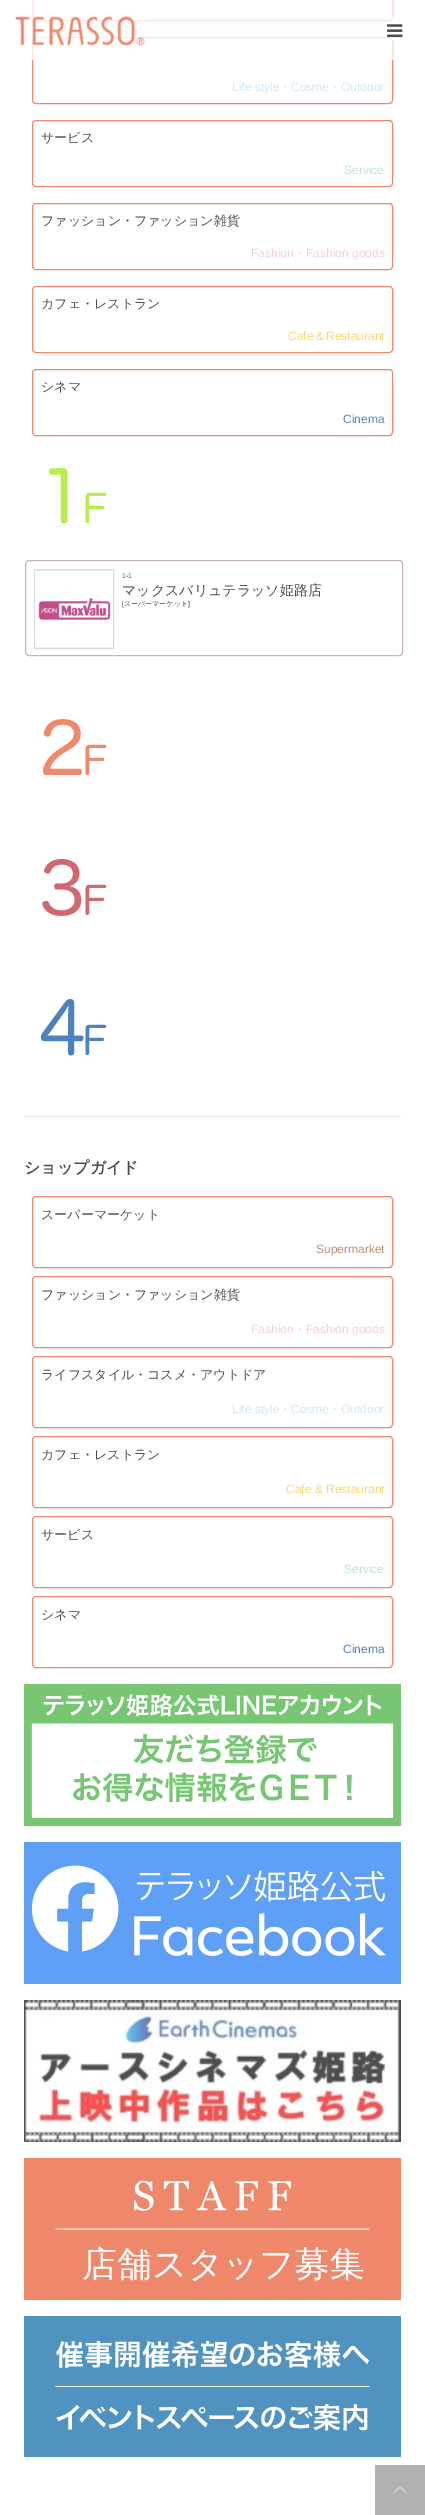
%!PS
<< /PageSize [425 2515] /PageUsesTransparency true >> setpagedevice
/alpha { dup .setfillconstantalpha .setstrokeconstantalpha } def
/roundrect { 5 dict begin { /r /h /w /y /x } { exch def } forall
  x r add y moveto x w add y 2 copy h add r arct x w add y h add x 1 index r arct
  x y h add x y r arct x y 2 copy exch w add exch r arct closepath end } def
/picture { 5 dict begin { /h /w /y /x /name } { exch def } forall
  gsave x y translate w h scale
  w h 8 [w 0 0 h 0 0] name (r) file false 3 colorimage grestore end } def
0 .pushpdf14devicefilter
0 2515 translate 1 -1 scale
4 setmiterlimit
1 setgray
0 0 425 2515 rectfill
0.937 0.529 0.416 setrgbcolor
32.5 -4.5 360 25 3.5 roundrect stroke
32.5 37.5 360 66 3.5 roundrect stroke
0.8 alpha
1 setgray
32 0 361 60 rectfill
1 alpha
(img1.rgb) 15 16 130 30 picture
(img2.rgb) 387 24 16 14 picture
/LiberationSans-Regular [12 0 0 -12 0 0] selectfont
0.812 0.906 0.969 setrgbcolor
232 91 moveto (Life style) show
/WenQuanYiZenHei-Medium [12 0 0 -12 0 0] selectfont
279 91 moveto (・) show
/LiberationSans-Regular [12 0 0 -12 0 0] selectfont
291 91 moveto (Cosme) show
/WenQuanYiZenHei-Medium [12 0 0 -12 0 0] selectfont
329 91 moveto (・) show
/LiberationSans-Regular [12 0 0 -12 0 0] selectfont
341 91 moveto (Outdoor) show
0.937 0.529 0.416 setrgbcolor
32.5 120.5 360 66 3.5 roundrect stroke
/WenQuanYiZenHei-Medium [13 0 0 -13 0 0] selectfont
0.302 setgray
41 142 moveto (サービス) show
/LiberationSans-Regular [12 0 0 -12 0 0] selectfont
0.741 0.886 0.878 setrgbcolor
344 174 moveto (Service) show
0.937 0.529 0.416 setrgbcolor
32.5 203.5 360 66 3.5 roundrect stroke
/WenQuanYiZenHei-Medium [13 0 0 -13 0 0] selectfont
0.302 setgray
41 225 moveto (ファッション・ファッション雑貨) show
/LiberationSans-Regular [12 0 0 -12 0 0] selectfont
0.949 0.812 0.867 setrgbcolor
251 257 moveto (Fashion) show
/WenQuanYiZenHei-Medium [12 0 0 -12 0 0] selectfont
294 257 moveto (・) show
/LiberationSans-Regular [12 0 0 -12 0 0] selectfont
306 257 moveto (Fashion goods) show
0.937 0.529 0.416 setrgbcolor
32.5 286.5 360 66 3.5 roundrect stroke
/WenQuanYiZenHei-Medium [13 0 0 -13 0 0] selectfont
0.302 setgray
41 308 moveto (カフェ・レストラン) show
/LiberationSans-Regular [12 0 0 -12 0 0] selectfont
0.984 0.827 0.467 setrgbcolor
288 340 moveto (Cafe) show
/WenQuanYiZenHei-Medium [12 0 0 -12 0 0] selectfont
314 340 moveto (＆) show
/LiberationSans-Regular [12 0 0 -12 0 0] selectfont
326 340 moveto (Restaurant) show
0.937 0.529 0.416 setrgbcolor
32.5 369.5 360 66 3.5 roundrect stroke
/WenQuanYiZenHei-Medium [13 0 0 -13 0 0] selectfont
0.302 setgray
41 391 moveto (シネマ) show
/LiberationSans-Regular [12 0 0 -12 0 0] selectfont
0.302 0.529 0.757 setrgbcolor
343 423 moveto (Cinema) show
(img3.rgb) 48 468 59 56 picture
0.78 0.714 0.694 setrgbcolor
25.5 560.5 377 95 3.5 roundrect stroke
0.859 setgray
34.5 569.5 79 79 rectstroke
(img4.rgb) 35 570 78 78 picture
/LiberationSans-Regular [7 0 0 -7 0 0] selectfont
0.302 setgray
122 578 moveto (1-1) show
/WenQuanYiZenHei-Medium [14 0 0 -14 0 0] selectfont
122 595 moveto (マックスバリュテラッソ姫路店) show
/LiberationSans-Regular [7 0 0 -7 0 0] selectfont
122 606 moveto ([) show
/WenQuanYiZenHei-Medium [7 0 0 -7 0 0] selectfont
124 606 moveto (スーパーマーケット) show
/LiberationSans-Regular [7 0 0 -7 0 0] selectfont
188 606 moveto (]) show
(img5.rgb) 43 719 64 56 picture
(img6.rgb) 42 859 65 57 picture
(img7.rgb) 40 999 67 57 picture
0.906 setgray
24 1116 377 1 rectfill
/WenQuanYiZenHei-Bold [16 0 0 -16 0 0] selectfont
0.302 setgray
24 1173 moveto (ショップガイド) show
0.937 0.529 0.416 setrgbcolor
32.5 1196.5 360 71 3.5 roundrect stroke
/WenQuanYiZenHei-Medium [13 0 0 -13 0 0] selectfont
0.302 setgray
41 1219 moveto (スーパーマーケット) show
/LiberationSans-Regular [12 0 0 -12 0 0] selectfont
0.761 0.565 0.455 setrgbcolor
316 1253 moveto (Supermarket) show
0.937 0.529 0.416 setrgbcolor
32.5 1276.5 360 71 3.5 roundrect stroke
/WenQuanYiZenHei-Medium [13 0 0 -13 0 0] selectfont
0.302 setgray
41 1299 moveto (ファッション・ファッション雑貨) show
/LiberationSans-Regular [12 0 0 -12 0 0] selectfont
0.949 0.812 0.867 setrgbcolor
251 1333 moveto (Fashion) show
/WenQuanYiZenHei-Medium [12 0 0 -12 0 0] selectfont
294 1333 moveto (・) show
/LiberationSans-Regular [12 0 0 -12 0 0] selectfont
306 1333 moveto (Fashion goods) show
0.937 0.529 0.416 setrgbcolor
32.5 1356.5 360 71 3.5 roundrect stroke
/WenQuanYiZenHei-Medium [13 0 0 -13 0 0] selectfont
0.302 setgray
41 1379 moveto (ライフスタイル・コスメ・アウトドア) show
/LiberationSans-Regular [12 0 0 -12 0 0] selectfont
0.812 0.906 0.969 setrgbcolor
232 1413 moveto (Life style) show
/WenQuanYiZenHei-Medium [12 0 0 -12 0 0] selectfont
279 1413 moveto (・) show
/LiberationSans-Regular [12 0 0 -12 0 0] selectfont
291 1413 moveto (Cosme) show
/WenQuanYiZenHei-Medium [12 0 0 -12 0 0] selectfont
329 1413 moveto (・) show
/LiberationSans-Regular [12 0 0 -12 0 0] selectfont
341 1413 moveto (Outdoor) show
0.937 0.529 0.416 setrgbcolor
32.5 1436.5 360 71 3.5 roundrect stroke
/WenQuanYiZenHei-Medium [13 0 0 -13 0 0] selectfont
0.302 setgray
41 1459 moveto (カフェ・レストラン) show
/LiberationSans-Regular [12 0 0 -12 0 0] selectfont
0.984 0.827 0.467 setrgbcolor
286 1493 moveto (Cafe & Restaurant) show
0.937 0.529 0.416 setrgbcolor
32.5 1516.5 360 71 3.5 roundrect stroke
/WenQuanYiZenHei-Medium [13 0 0 -13 0 0] selectfont
0.302 setgray
41 1539 moveto (サービス) show
/LiberationSans-Regular [12 0 0 -12 0 0] selectfont
0.741 0.886 0.878 setrgbcolor
344 1573 moveto (Service) show
0.937 0.529 0.416 setrgbcolor
32.5 1596.5 360 71 3.5 roundrect stroke
/WenQuanYiZenHei-Medium [13 0 0 -13 0 0] selectfont
0.302 setgray
41 1619 moveto (シネマ) show
/LiberationSans-Regular [12 0 0 -12 0 0] selectfont
0.302 0.529 0.757 setrgbcolor
343 1653 moveto (Cinema) show
(img8.rgb) 24 1684 377 142 picture
(img9.rgb) 24 1842 377 142 picture
(img10.rgb) 24 2000 377 142 picture
(img11.rgb) 24 2158 377 142 picture
(img12.rgb) 24 2316 377 141 picture
0.694 setgray
375 2465 50 50 rectfill
(img13.rgb) 394 2486 12 7 picture
.poppdf14devicefilter showpage
